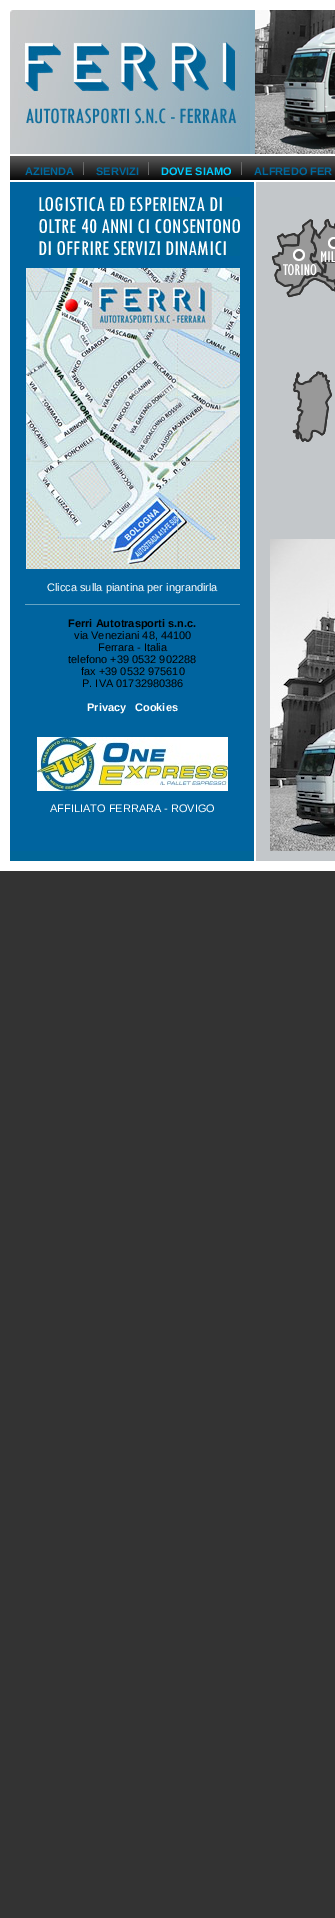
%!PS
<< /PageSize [335 1918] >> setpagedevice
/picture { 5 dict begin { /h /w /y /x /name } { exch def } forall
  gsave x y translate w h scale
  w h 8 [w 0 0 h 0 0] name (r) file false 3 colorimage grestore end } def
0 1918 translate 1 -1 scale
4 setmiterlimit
0.2 setgray
0 0 335 1918 rectfill
1 setgray
0 0 335 10 rectfill
0 10 10 851 rectfill
(img1.rgb) 10 10 325 144 picture
10 154 325 2 rectfill
(img2.rgb) 10 156 325 24 picture
/LiberationSans-Bold [11 0 0 -11 0 0] selectfont
0 0.416 0.624 setrgbcolor
25 175 moveto (AZIENDA) show
0.4 setgray
83 162 1 13 rectfill
0 0.416 0.624 setrgbcolor
96 175 moveto (SERVIZI) show
0.4 setgray
148 162 1 13 rectfill
0 0.8 1 setrgbcolor
161 175 moveto (DOVE SIAMO) show
0.4 setgray
241 162 1 13 rectfill
0 0.416 0.624 setrgbcolor
254 175 moveto (ALFREDO FER) show
1 setgray
10 180 325 2 rectfill
0 0.392 0.624 setrgbcolor
10 182 244 669 rectfill
1 setgray
254 182 2 679 rectfill
0.765 0.78 0.792 setrgbcolor
256 182 79 679 rectfill
(img3.rgb) 39 197 201 59 picture
(img4.rgb) 26 268 214 301 picture
/LiberationSans-Regular [11 0 0 -11 0 0] selectfont
1 setgray
47 591 moveto (Clicca sulla piantina per ingrandirla) show
0.4 0.639 0.761 setrgbcolor
25 604 215 1 rectfill
/LiberationSans-Bold [11 0 0 -11 0 0] selectfont
0 setgray
68 627 moveto (Ferri Autotrasporti s.n.c.) show
/LiberationSans-Regular [11 0 0 -11 0 0] selectfont
74 639 moveto (via Veneziani 48, 44100) show
98 651 moveto (Ferrara - Italia) show
68 663 moveto (telefono +39 0532 902288) show
81 675 moveto (fax +39 0532 975610) show
82 687 moveto (P. IVA 01732980386) show
/LiberationSans-Bold [11 0 0 -11 0 0] selectfont
1 setgray
87 711 moveto (Privacy) show
135 711 moveto (Cookies) show
(img5.rgb) 37 737 191 54 picture
/LiberationSans-Regular [11 0 0 -11 0 0] selectfont
50 812 moveto (AFFILIATO FERRARA - ROVIGO) show
(img6.rgb) 271 219 64 223 picture
(img7.rgb) 270 539 65 312 picture
0 0.4 0.6 setrgbcolor
10 851 244 10 rectfill
1 setgray
0 861 335 10 rectfill
showpage
